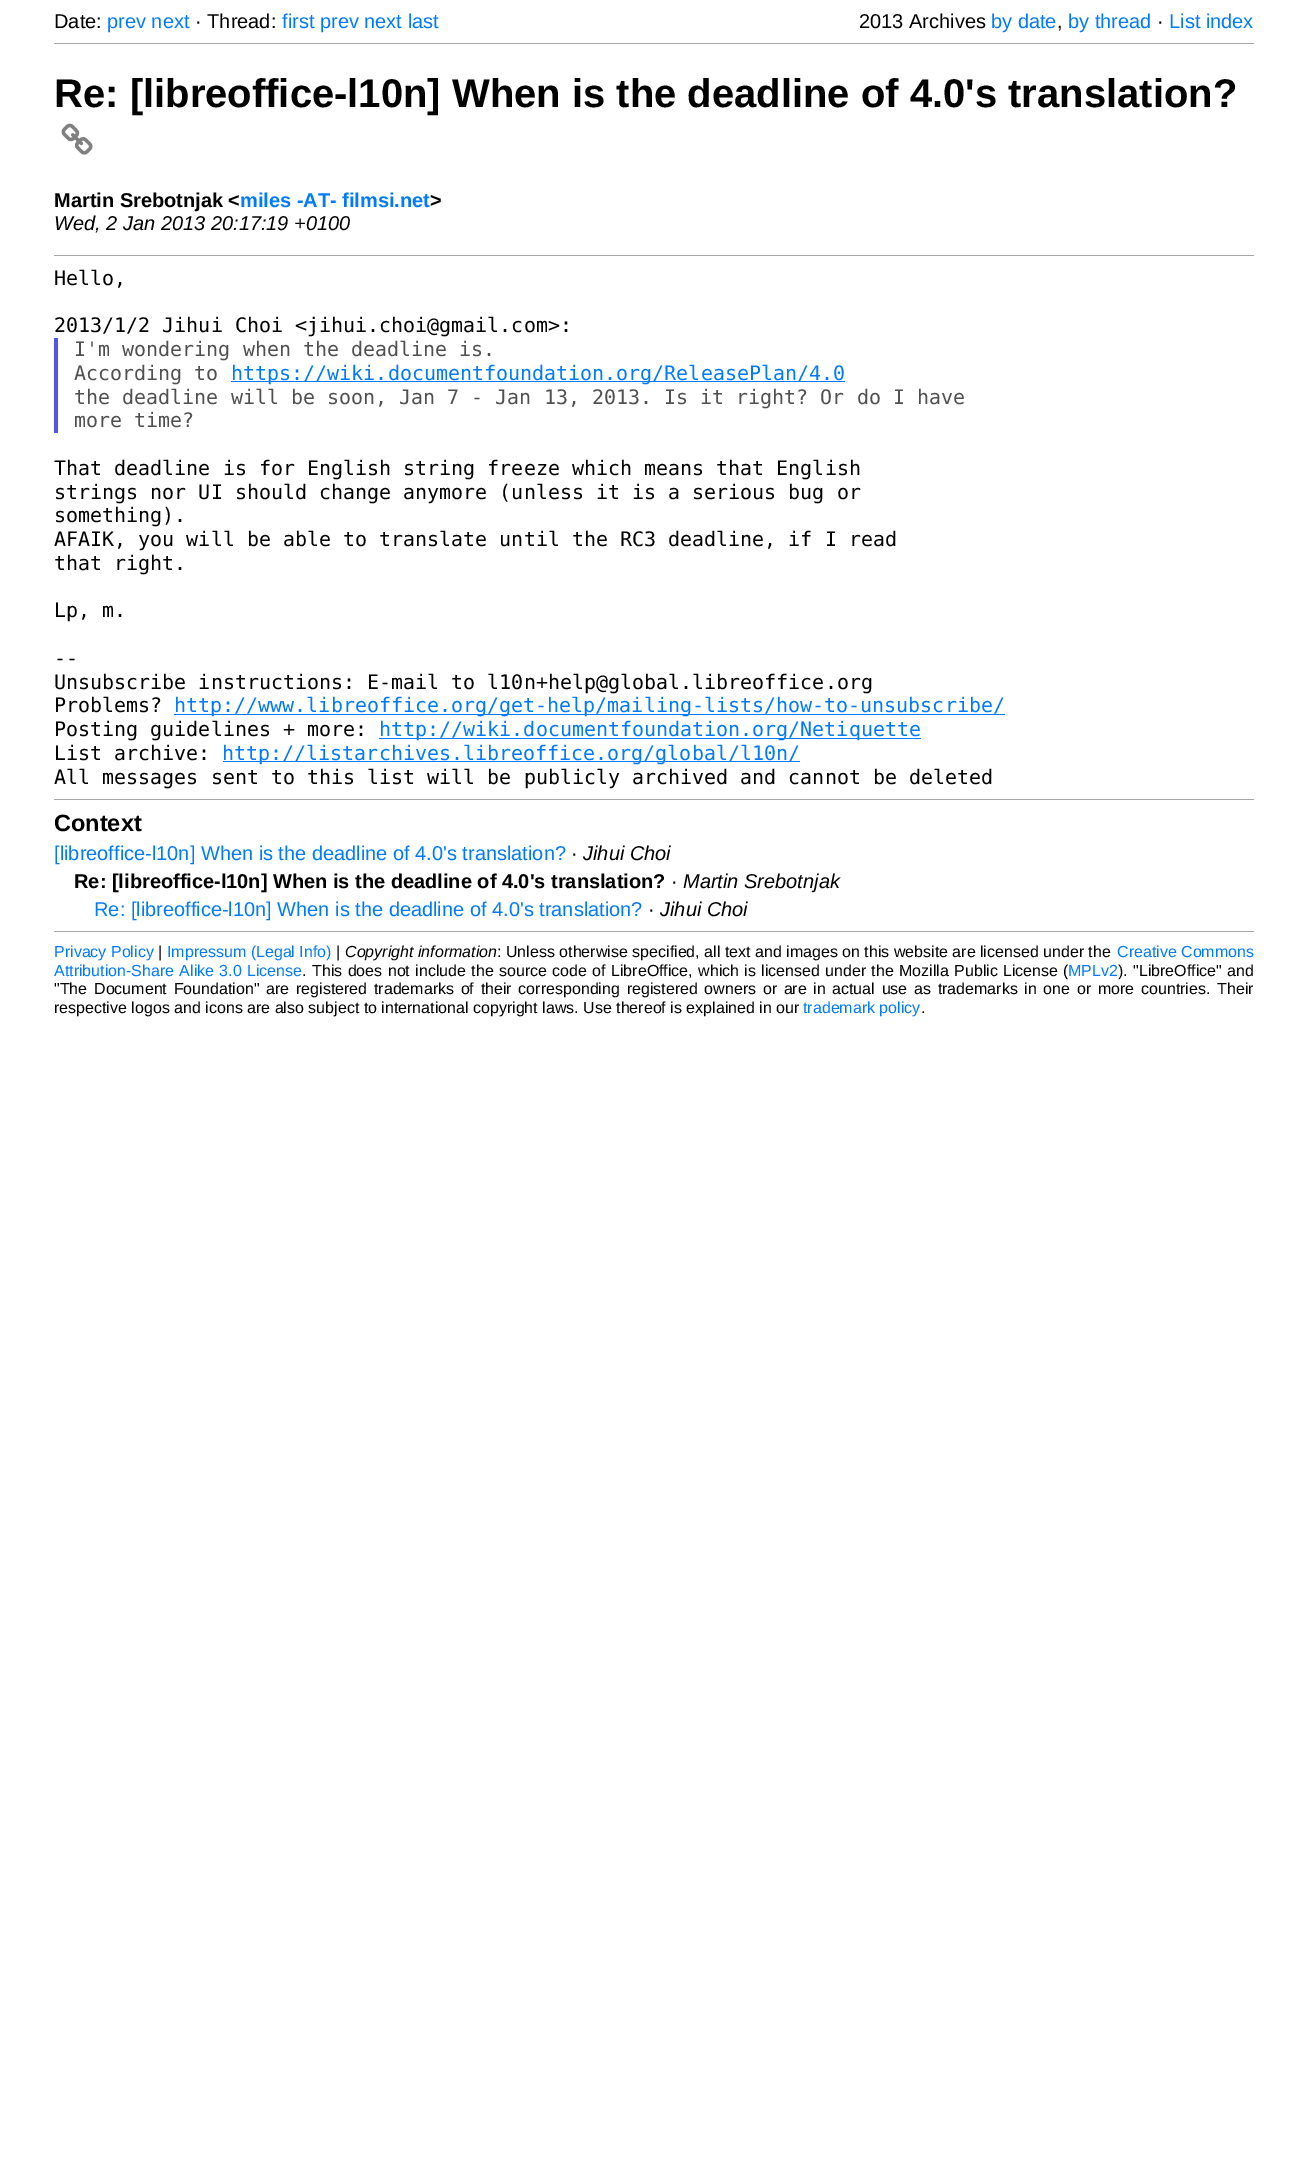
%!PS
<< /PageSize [1307 2164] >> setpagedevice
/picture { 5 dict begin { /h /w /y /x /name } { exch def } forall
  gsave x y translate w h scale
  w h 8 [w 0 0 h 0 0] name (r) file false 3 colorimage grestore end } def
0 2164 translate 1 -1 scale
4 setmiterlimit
1 setgray
0 0 1307 2164 rectfill
/LiberationSans-Regular [20 0 0 -20 0 0] selectfont
0 setgray
54 28 moveto (Date:) show
0 0.482 1 setrgbcolor
107 28 moveto (prev next) show
0 setgray
195 28 moveto (· Thread:) show
0 0.482 1 setrgbcolor
282 28 moveto (first prev next last) show
0 setgray
859 28 moveto (2013 Archives) show
0 0.482 1 setrgbcolor
991 28 moveto (by date) show
1068 28 moveto (by thread) show
0 setgray
1157 28 moveto (·) show
0 0.482 1 setrgbcolor
1169 28 moveto (List index) show
0 setgray
1057 28 moveto (,) show
0.651 setgray
54 43 1200 1 rectfill
/LiberationSans-Bold [40 0 0 -40 0 0] selectfont
0 setgray
54 107 moveto (Re: [libreoffice-l10n] When is the deadline of 4.0's translation?) show
(img1.rgb) 61 123 32 32 picture
/LiberationSans-Bold [20 0 0 -20 0 0] selectfont
54 207 moveto (Martin Srebotnjak <) show
0 0.482 1 setrgbcolor
240 207 moveto (miles -AT- filmsi.net) show
0 setgray
430 207 moveto (>) show
/LiberationSans-Italic [20 0 0 -20 0 0] selectfont
54 230 moveto (Wed, 2 Jan 2013 20:17:19 +0100) show
0.651 setgray
54 255 1200 1 rectfill
/DejaVuSansMono-Regular [20 0 0 -20 0 0] selectfont
0 setgray
54 285 moveto (Hello,) show
54 332 moveto (2013/1/2 Jihui Choi <jihui.choi@gmail.com>:) show
0.333 0.333 0.933 setrgbcolor
54 338 4 95 rectfill
0.314 setgray
74 356 moveto (I'm wondering when the deadline is.) show
74 380 moveto (According to) show
0 0.482 1 setrgbcolor
231 381 614 1 rectfill
231 380 moveto (https://wiki.documentfoundation.org/ReleasePlan/4.0) show
0.314 setgray
74 404 moveto (the deadline will be soon, Jan 7 - Jan 13, 2013. Is it right? Or do I have) show
74 427 moveto (more time?) show
0 setgray
54 475 moveto (That deadline is for English string freeze which means that English) show
54 499 moveto (strings nor UI should change anymore \(unless it is a serious bug or) show
54 522 moveto (something\).) show
54 546 moveto (AFAIK, you will be able to translate until the RC3 deadline, if I read) show
54 570 moveto (that right.) show
54 617 moveto (Lp, m.) show
54 665 moveto (--) show
54 689 moveto (Unsubscribe instructions: E-mail to l10n+help@global.libreoffice.org) show
54 712 moveto (Problems?) show
0 0.482 1 setrgbcolor
174 714 831 1 rectfill
174 712 moveto (http://www.libreoffice.org/get-help/mailing-lists/how-to-unsubscribe/) show
0 setgray
54 736 moveto (Posting guidelines + more:) show
0 0.482 1 setrgbcolor
379 738 542 1 rectfill
379 736 moveto (http://wiki.documentfoundation.org/Netiquette) show
0 setgray
54 760 moveto (List archive:) show
0 0.482 1 setrgbcolor
223 761 577 1 rectfill
222 760 moveto (http://listarchives.libreoffice.org/global/l10n/) show
0 setgray
54 784 moveto (All messages sent to this list will be publicly archived and cannot be deleted) show
0.651 setgray
54 799 1200 1 rectfill
/LiberationSans-Bold [23.5 0 0 -23.5 0 0] selectfont
0 setgray
54 831 moveto (Context) show
/LiberationSans-Regular [20 0 0 -20 0 0] selectfont
0 0.482 1 setrgbcolor
54 860 moveto ([libreoffice-l10n] When is the deadline of 4.0's translation?) show
0 setgray
571 860 moveto (·) show
/LiberationSans-Italic [20 0 0 -20 0 0] selectfont
583 860 moveto (Jihui Choi) show
/LiberationSans-Bold [20 0 0 -20 0 0] selectfont
74 888 moveto (Re: [libreoffice-l10n] When is the deadline of 4.0's translation?) show
/LiberationSans-Regular [20 0 0 -20 0 0] selectfont
671 888 moveto (·) show
/LiberationSans-Italic [20 0 0 -20 0 0] selectfont
683 888 moveto (Martin Srebotnjak) show
/LiberationSans-Regular [20 0 0 -20 0 0] selectfont
0 0.482 1 setrgbcolor
94 916 moveto (Re: [libreoffice-l10n] When is the deadline of 4.0's translation?) show
0 setgray
648 916 moveto (·) show
/LiberationSans-Italic [20 0 0 -20 0 0] selectfont
660 916 moveto (Jihui Choi) show
0.651 setgray
54 931 1200 1 rectfill
/LiberationSans-Regular [16 0 0 -16 0 0] selectfont
0 0.482 1 setrgbcolor
54 957 moveto (Privacy Policy) show
0 setgray
158 957 moveto (|) show
0 0.482 1 setrgbcolor
167 957 moveto (Impressum \(Legal Info\)) show
0 setgray
336 957 moveto (|) show
/LiberationSans-Italic [16 0 0 -16 0 0] selectfont
345 957 moveto (Copyright information) show
/LiberationSans-Regular [16 0 0 -16 0 0] selectfont
497 957 moveto (: Unless otherwise specified, all text and images on this website are licensed under the) show
0 0.482 1 setrgbcolor
1117 957 moveto (Creative Commons) show
54 976 moveto 0.9 0 32 (Attribution-Share Alike 3.0 License) widthshow
0 setgray
302 976 moveto (.) show
312 976 moveto 0.9 0 32 (This does not include the source code of LibreOffice, which is) widthshow
761 976 moveto 0.9 0 32 (licensed under the Mozilla Public License \() widthshow
0 0.482 1 setrgbcolor
1068 976 moveto (MPLv2) show
0 setgray
1118 976 moveto (\).) show
1133 976 moveto 0.9 0 32 ("LibreOffice" and) widthshow
54 994 moveto 2.25 0 32 ("The Document Foundation" are) widthshow
296 994 moveto 2.25 0 32 (registered trademarks of their corresponding registered owners or are) widthshow
813 994 moveto 2.25 0 32 (in actual use as trademarks in one or more countries. Their) widthshow
54 1013 moveto (respective logos and icons are also subject to international copyright laws. Use thereof is explained in our) show
0 0.482 1 setrgbcolor
803 1013 moveto (trademark policy) show
0 setgray
921 1013 moveto (.) show
showpage
